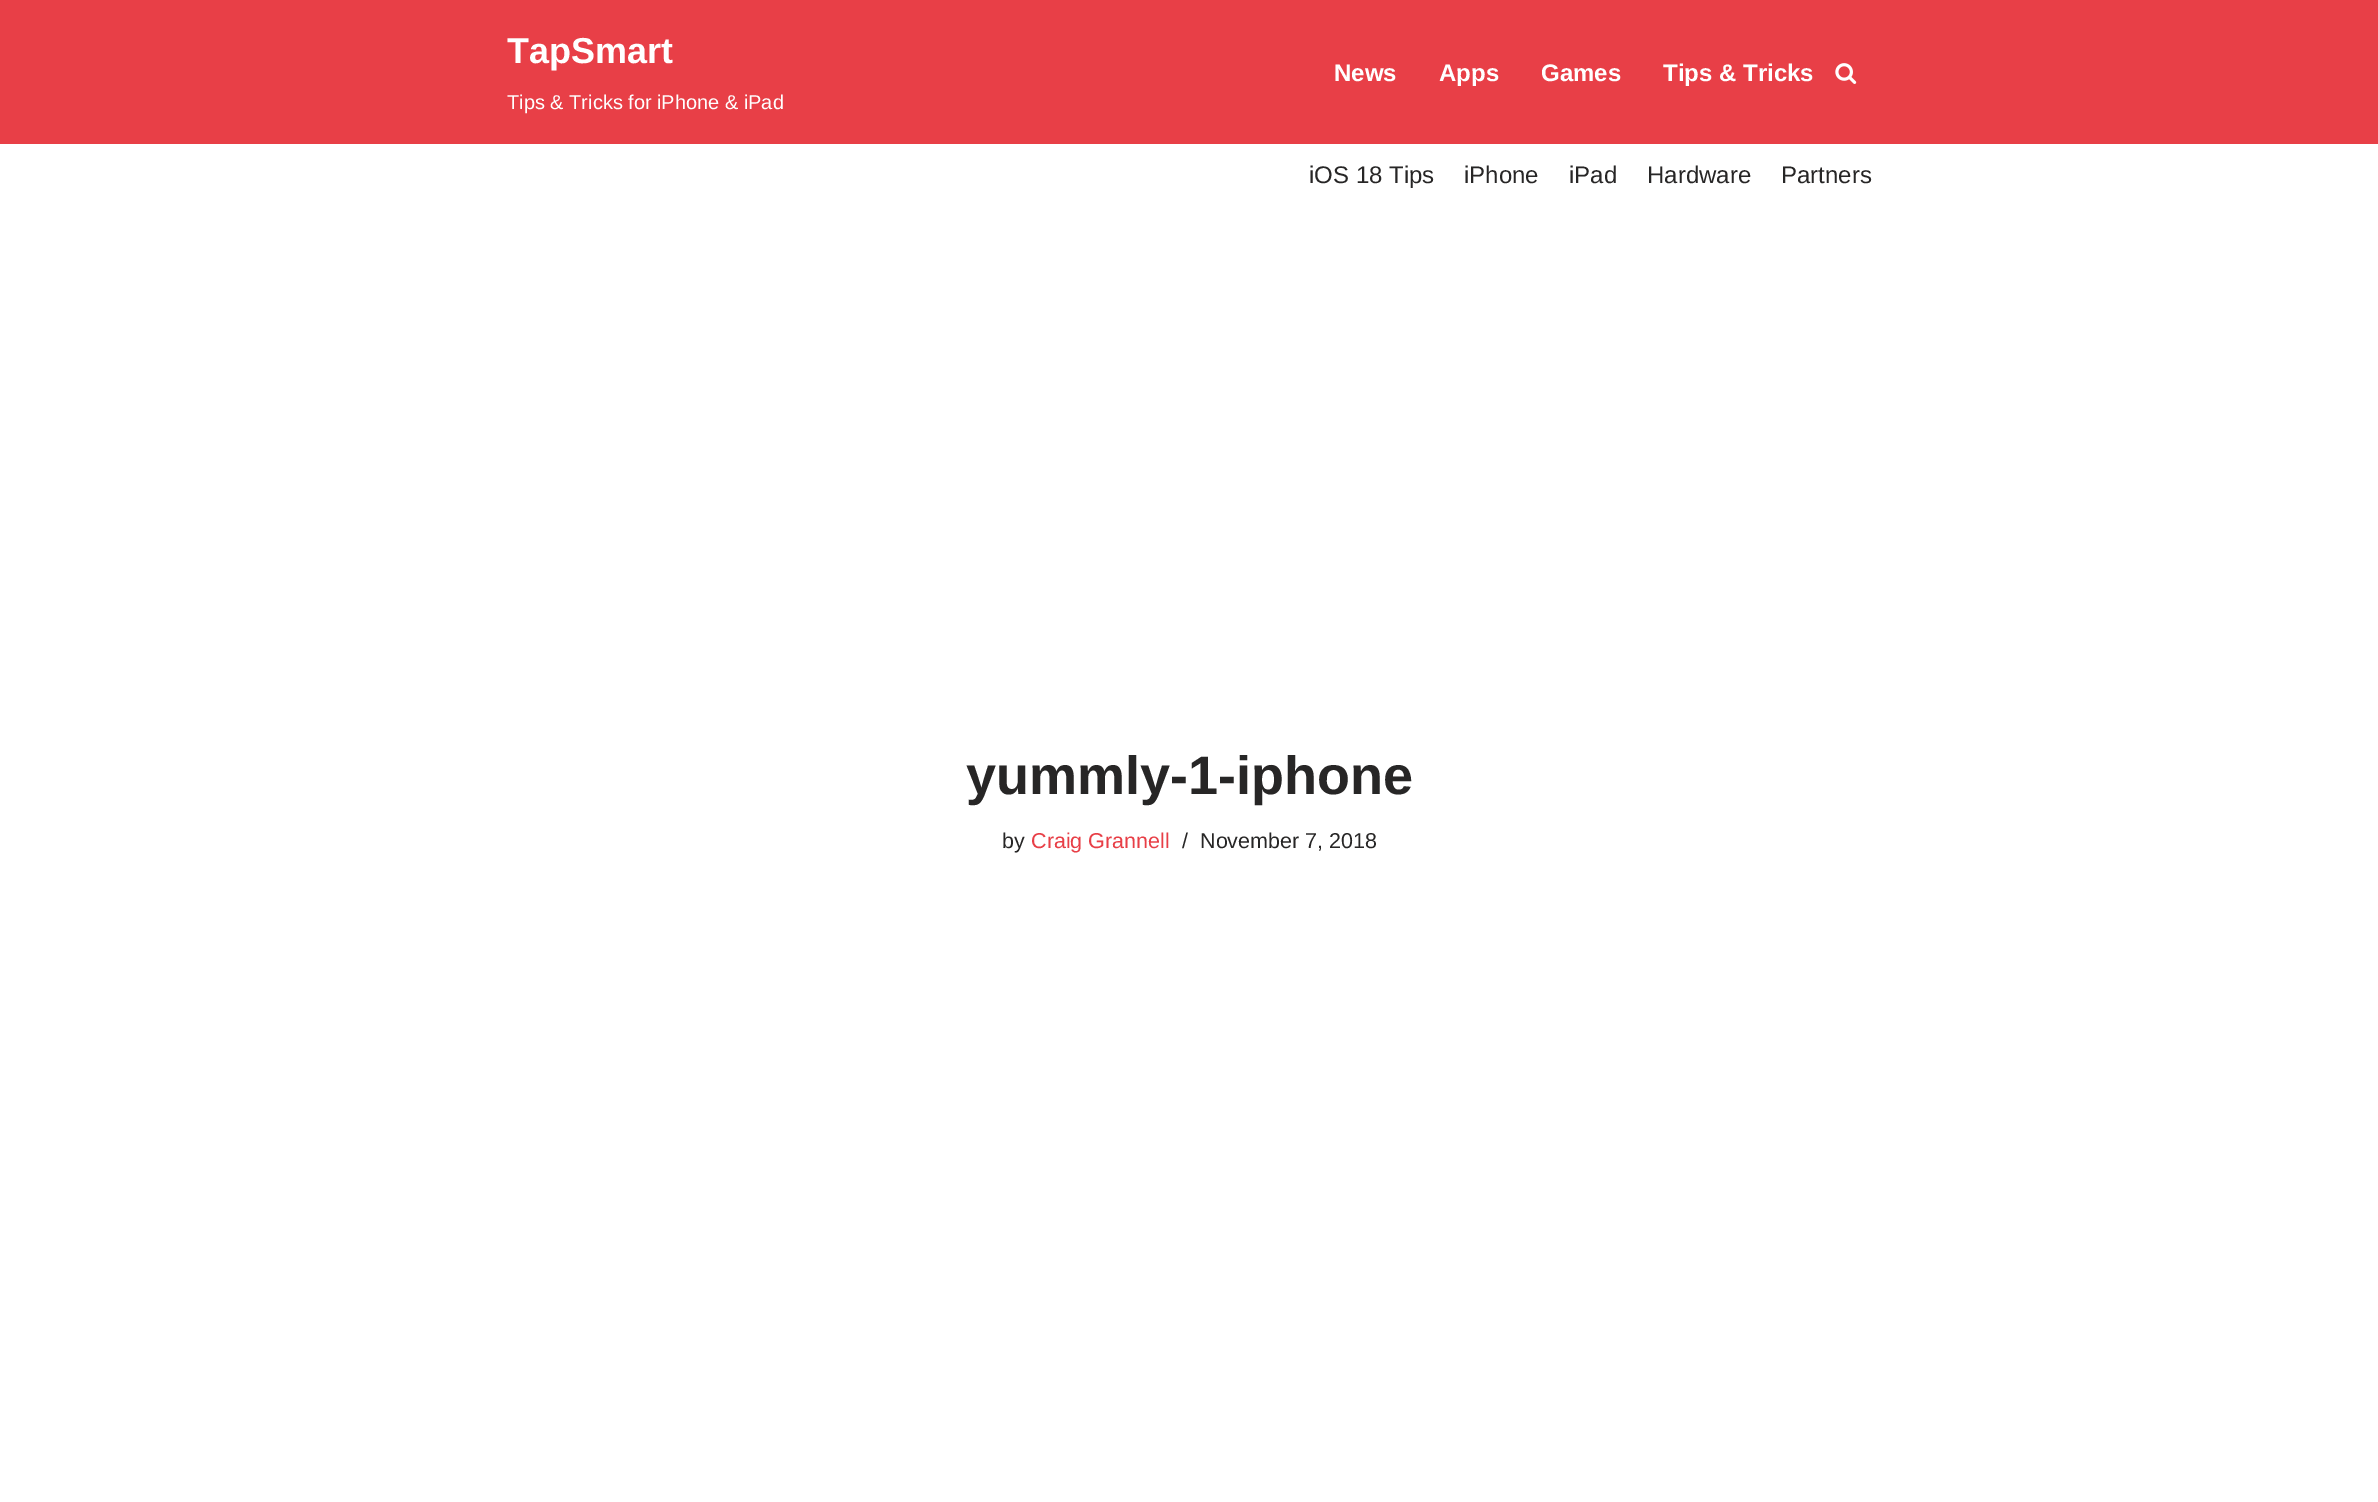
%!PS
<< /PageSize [2378 1502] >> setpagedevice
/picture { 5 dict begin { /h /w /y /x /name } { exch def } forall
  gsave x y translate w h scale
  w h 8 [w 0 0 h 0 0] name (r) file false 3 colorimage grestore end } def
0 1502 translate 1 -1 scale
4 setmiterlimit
1 setgray
0 0 2378 1502 rectfill
0.91 0.247 0.278 setrgbcolor
0 0 2378 144 rectfill
/LiberationSans-Bold [36 0 0 -36 0 0] selectfont
1 setgray
507 63 moveto (TapSmart) show
/LiberationSans-Regular [20 0 0 -20 0 0] selectfont
507 109 moveto (Tips & Tricks for iPhone & iPad) show
/LiberationSans-Bold [24 0 0 -24 0 0] selectfont
1334 81 moveto (News) show
1439 81 moveto (Apps) show
1541 81 moveto (Games) show
1663 81 moveto (Tips & Tricks) show
(img1.rgb) 1835 63 22 21 picture
/LiberationSans-Regular [24 0 0 -24 0 0] selectfont
0.153 0.149 0.149 setrgbcolor
1309 183 moveto (iOS 18 Tips) show
1464 183 moveto (iPhone) show
1569 183 moveto (iPad) show
1647 183 moveto (Hardware) show
1781 183 moveto (Partners) show
/LiberationSans-Bold [54 0 0 -54 0 0] selectfont
966 794 moveto (yummly-1-iphone) show
/LiberationSans-Regular [21.5 0 0 -21.5 0 0] selectfont
1002 848 moveto (by) show
0.91 0.247 0.278 setrgbcolor
1031 848 moveto (Craig Grannell) show
0.153 0.149 0.149 setrgbcolor
1182 848 moveto (/) show
1200 848 moveto (November 7, 2018) show
showpage
